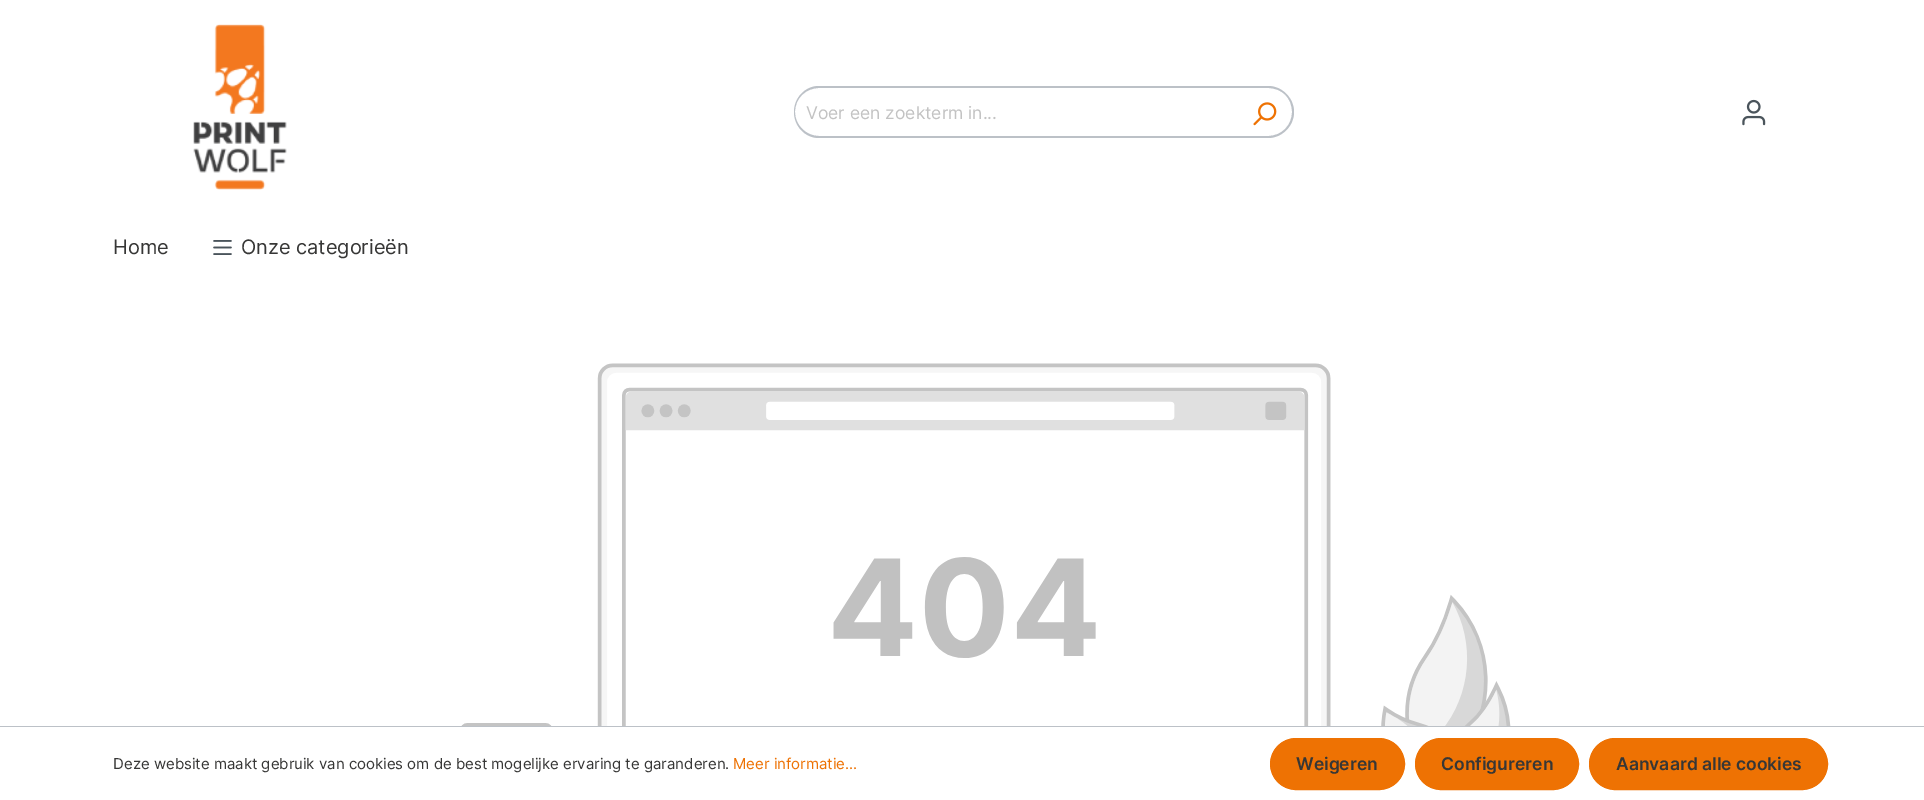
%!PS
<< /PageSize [1924 800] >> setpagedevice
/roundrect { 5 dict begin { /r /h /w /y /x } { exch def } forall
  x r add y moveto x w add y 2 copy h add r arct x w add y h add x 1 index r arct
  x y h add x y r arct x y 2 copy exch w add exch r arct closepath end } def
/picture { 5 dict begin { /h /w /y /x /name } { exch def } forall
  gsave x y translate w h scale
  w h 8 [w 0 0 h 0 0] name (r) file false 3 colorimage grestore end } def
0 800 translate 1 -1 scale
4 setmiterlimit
1 setgray
0 0 1924 800 rectfill
(img1.rgb) 193 24 94 166 picture
0.737 0.757 0.78 setrgbcolor
newpath 819 86 moveto 1236 86 lineto 1236 138 lineto 819 138 lineto 805 138 794 126 794 112 curveto 794 98 805 86 819 86 curveto closepath 819 88 moveto 1236 88 lineto 1236 136 lineto 819 136 lineto 806 136 795 125 795 112 curveto 795 98 806 88 819 88 curveto closepath eofill
/Inter-Regular [17.5 0 0 -17.5 0 0] selectfont
0.765 setgray
806 119 moveto (Voer een zoekterm in...) show
1 setgray
newpath 1235 86 moveto 1268 86 lineto 1282.5 86 1294 97.5 1294 112 curveto 1294 126.5 1282.5 138 1268 138 curveto 1235 138 lineto closepath fill
0.737 0.757 0.78 setrgbcolor
newpath 1235 86 moveto 1268 86 lineto 1282 86 1294 98 1294 112 curveto 1294 126 1282 138 1268 138 curveto 1235 138 lineto closepath 1235 88 moveto 1268 88 lineto 1282 88 1292 98 1292 112 curveto 1292 125 1282 136 1268 136 curveto 1235 136 lineto closepath eofill
(img2.rgb) 1253 102 24 24 picture
(img3.rgb) 1742 99 24 27 picture
/Inter-Regular [20 0 0 -20 0 0] selectfont
0.216 0.216 0.212 setrgbcolor
113 254 moveto (Home) show
(img4.rgb) 213 240 19 15 picture
241 254 moveto (Onze categorieën) show
(img5.rgb) 461 363 1050 363 picture
0.737 0.757 0.78 setrgbcolor
0 726 1924 1 rectfill
/Inter-Regular [15 0 0 -15 0 0] selectfont
0.216 0.216 0.212 setrgbcolor
113 769 moveto (Deze website maakt gebruik van cookies om de best mogelijke ervaring te garanderen.) show
0.933 0.447 0.012 setrgbcolor
733 769 moveto (Meer informatie...) show
1270.5 738.5 134 51 25.5 roundrect gsave fill grestore
stroke
/Inter-SemiBold [17.5 0 0 -17.5 0 0] selectfont
0.216 0.216 0.212 setrgbcolor
1296 770 moveto (Weigeren) show
0.933 0.447 0.012 setrgbcolor
1415.5 738.5 163 51 25.5 roundrect gsave fill grestore
stroke
0.216 0.216 0.212 setrgbcolor
1441 770 moveto (Configureren) show
0.933 0.447 0.012 setrgbcolor
1589.5 738.5 238 51 25.5 roundrect gsave fill grestore
stroke
0.216 0.216 0.212 setrgbcolor
1616 770 moveto (Aanvaard alle cookies) show
showpage
